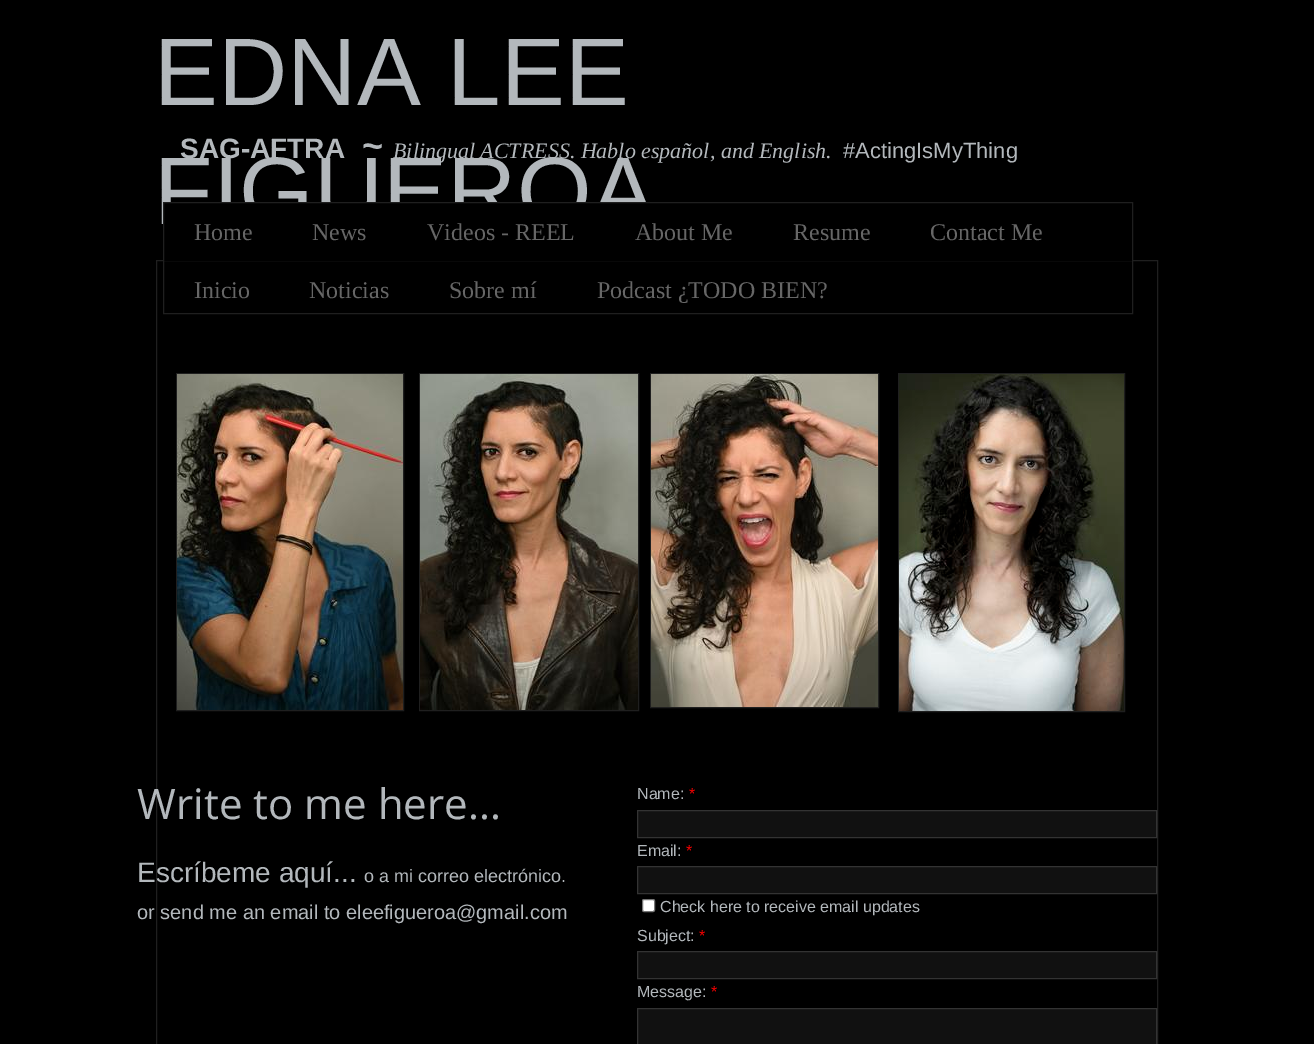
%!PS
<< /PageSize [1314 1044] >> setpagedevice
/roundrect { 5 dict begin { /r /h /w /y /x } { exch def } forall
  x r add y moveto x w add y 2 copy h add r arct x w add y h add x 1 index r arct
  x y h add x y r arct x y 2 copy exch w add exch r arct closepath end } def
/picture { 5 dict begin { /h /w /y /x /name } { exch def } forall
  gsave x y translate w h scale
  w h 8 [w 0 0 h 0 0] name (r) file false 3 colorimage grestore end } def
0 1044 translate 1 -1 scale
4 setmiterlimit
0 setgray
0 0 1314 1044 rectfill
0.122 setgray
156.5 260.5 1001 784 rectstroke
/LiberationSans-Regular [96 0 0 -96 0 0] selectfont
0.702 0.722 0.737 setrgbcolor
154 105 moveto (EDNA LEE) show
154 224 moveto (FIGUEROA) show
/LiberationSans-Bold [28 0 0 -28 0 0] selectfont
180 158 moveto (SAG-AFTRA) show
/LiberationSans-Bold [36 0 0 -36 0 0] selectfont
362 158 moveto (~) show
/LiberationSerif-Italic [22 0 0 -22 0 0] selectfont
393 158 moveto (Bilingual ACTRESS. Hablo español, and English.) show
/LiberationSans-Regular [22 0 0 -22 0 0] selectfont
843 158 moveto (#ActingIsMyThing) show
0 setgray
164 203 968 58 rectfill
0.122 setgray
163.5 202.5 969 111 rectstroke
/LiberationSerif-Regular [24 0 0 -24 0 0] selectfont
0.4 setgray
194 240 moveto (Home) show
312 240 moveto (News) show
427 240 moveto (Videos - REEL) show
635 240 moveto (About Me) show
793 240 moveto (Resume) show
930 240 moveto (Contact Me) show
194 298 moveto (Inicio) show
309 298 moveto (Noticias) show
449 298 moveto (Sobre mí) show
597 298 moveto (Podcast ¿TODO BIEN?) show
0.122 setgray
176.5 373.5 227 337 rectstroke
(img1.rgb) 177 374 226 336 picture
419.5 373.5 219 337 rectstroke
(img2.rgb) 420 374 218 336 picture
650.5 373.5 228 334 rectstroke
(img3.rgb) 651 374 227 333 picture
898.5 373.5 226 338 rectstroke
(img4.rgb) 899 374 225 337 picture
/OpenSans-Regular [42 0 0 -42 0 0] selectfont
0.702 0.722 0.737 setrgbcolor
137 819 moveto (Write to me here...) show
/LiberationSans-Regular [28 0 0 -28 0 0] selectfont
137 882 moveto (Escríbeme aquí...) show
/LiberationSans-Regular [18 0 0 -18 0 0] selectfont
364 882 moveto (o a mi correo electrónico.) show
/LiberationSans-Regular [20 0 0 -20 0 0] selectfont
137 919 moveto (or send me an email to eleefigueroa@gmail.com) show
/LiberationSans-Regular [16 0 0 -16 0 0] selectfont
637 799 moveto (Name:) show
1 0 0 setrgbcolor
689 799 moveto (*) show
0.067 setgray
newpath 637.5 810.5 moveto 1156.5 810.5 lineto 1156.5 837.5 lineto 637.5 837.5 lineto closepath gsave fill grestore
0.2 setgray
stroke
0.702 0.722 0.737 setrgbcolor
637 856 moveto (Email:) show
1 0 0 setrgbcolor
686 856 moveto (*) show
0.067 setgray
newpath 637.5 866.5 moveto 1156.5 866.5 lineto 1156.5 893.5 lineto 637.5 893.5 lineto closepath gsave fill grestore
0.2 setgray
stroke
1 setgray
642.5 899.5 12 12 1.5 roundrect gsave fill grestore
0.463 setgray
stroke
0.702 0.722 0.737 setrgbcolor
660 912 moveto (Check here to receive email updates) show
637 941 moveto (Subject:) show
1 0 0 setrgbcolor
699 941 moveto (*) show
0.067 setgray
newpath 637.5 951.5 moveto 1156.5 951.5 lineto 1156.5 978.5 lineto 637.5 978.5 lineto closepath gsave fill grestore
0.2 setgray
stroke
0.702 0.722 0.737 setrgbcolor
637 997 moveto (Message:) show
1 0 0 setrgbcolor
711 997 moveto (*) show
0.067 setgray
newpath 637.5 1008.5 moveto 1156.5 1008.5 lineto 1156.5 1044.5 lineto 637.5 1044.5 lineto closepath gsave fill grestore
0.2 setgray
stroke
showpage
